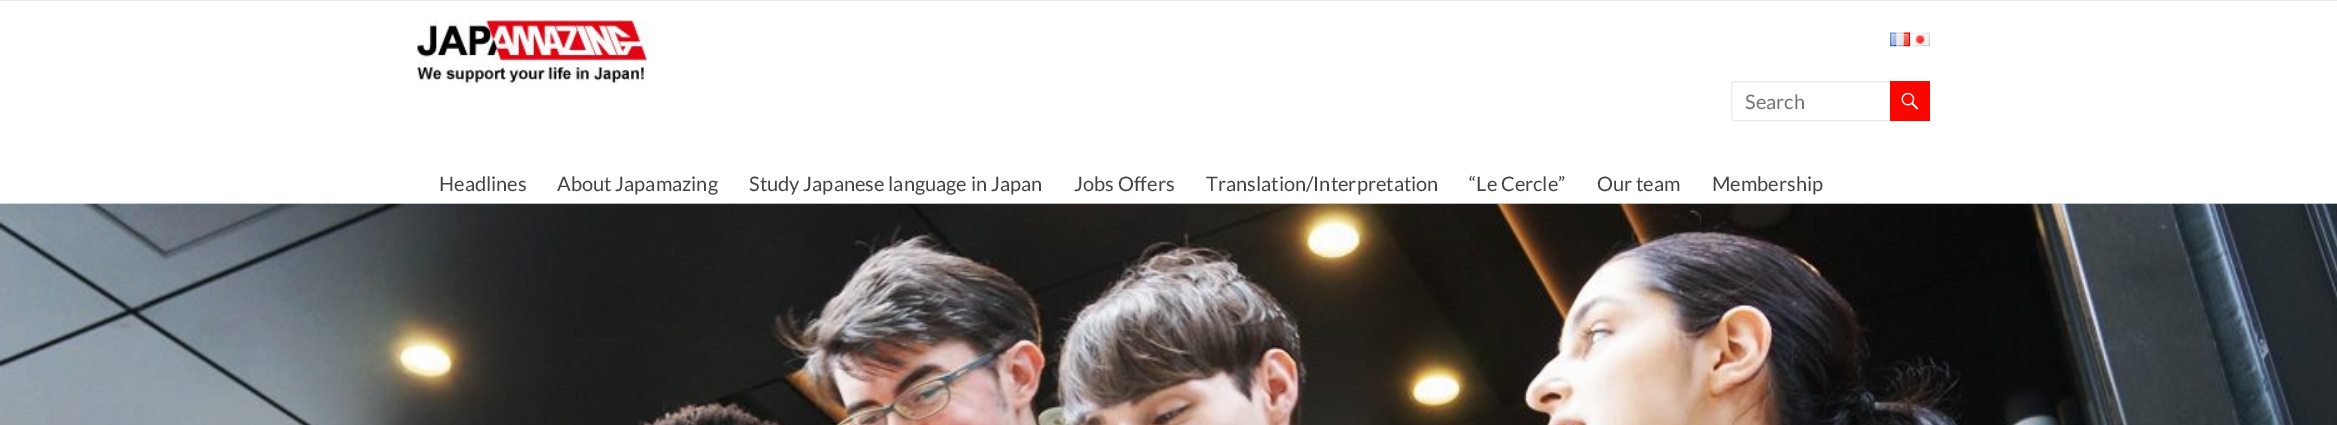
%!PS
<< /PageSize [2337 425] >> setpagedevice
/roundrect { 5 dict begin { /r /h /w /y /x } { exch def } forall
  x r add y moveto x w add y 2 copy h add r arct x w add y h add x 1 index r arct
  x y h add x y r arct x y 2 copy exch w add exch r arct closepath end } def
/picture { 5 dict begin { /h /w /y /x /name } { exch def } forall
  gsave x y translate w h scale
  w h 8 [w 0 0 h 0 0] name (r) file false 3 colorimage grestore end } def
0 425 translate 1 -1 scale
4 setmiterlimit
1 setgray
0 0 2337 425 rectfill
0.918 setgray
0 0 2337 1 rectfill
0 203 2337 1 rectfill
(img1.rgb) 417 20 231 65 picture
(img2.rgb) 1890 32 20 15 picture
(img3.rgb) 1910 32 20 15 picture
1731.5 81.5 162 39 3.5 roundrect stroke
/Lato-Regular [20 0 0 -20 0 0] selectfont
0.459 setgray
1745 109 moveto (Search) show
0.973 0.027 0 setrgbcolor
1890 81 40 40 rectfill
(img4.rgb) 1901 92 18 18 picture
0.267 setgray
439 191 moveto (Headlines) show
557 191 moveto (About Japamazing) show
749 191 moveto (Study Japanese language in Japan) show
1074 191 moveto (Jobs Offers) show
1206 191 moveto (Translation/Interpretation) show
1469 191 moveto (“Le Cercle”) show
1597 191 moveto (Our team) show
1712 191 moveto (Membership) show
(img5.rgb) 0 203 2337 222 picture
showpage
